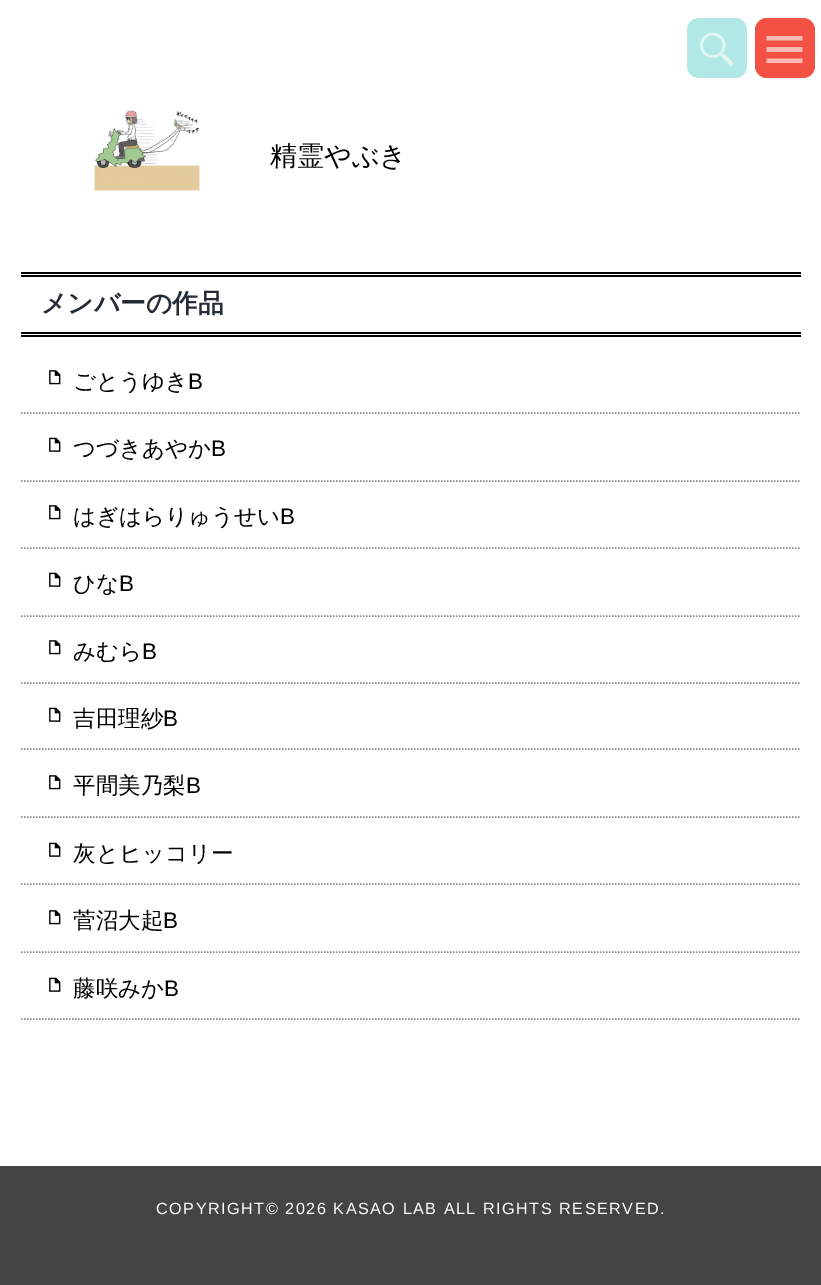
%!PS
<< /PageSize [821 1285] >> setpagedevice
/roundrect { 5 dict begin { /r /h /w /y /x } { exch def } forall
  x r add y moveto x w add y 2 copy h add r arct x w add y h add x 1 index r arct
  x y h add x y r arct x y 2 copy exch w add exch r arct closepath end } def
/picture { 5 dict begin { /h /w /y /x /name } { exch def } forall
  gsave x y translate w h scale
  w h 8 [w 0 0 h 0 0] name (r) file false 3 colorimage grestore end } def
0 1285 translate 1 -1 scale
4 setmiterlimit
1 setgray
0 0 821 1285 rectfill
0.694 0.91 0.902 setrgbcolor
687 18 60 60 12 roundrect fill
(img1.rgb) 700 32 34 35 picture
0.957 0.318 0.271 setrgbcolor
755 18 60 60 12 roundrect fill
0.984 0.725 0.71 setrgbcolor
newpath 766.5 63 moveto 766.5 58.5 lineto 802.5 58.5 lineto 802.5 63 lineto closepath 766.5 36 moveto 802.5 36 lineto 802.5 40.5 lineto 766.5 40.5 lineto closepath 766.5 52 moveto 766.5 47 lineto 802.5 47 lineto 802.5 52 lineto closepath fill
(img2.rgb) 94 110 106 81 picture
/WenQuanYiZenHei-Medium [27 0 0 -27 0 0] selectfont
0 setgray
270 165 moveto (精霊やぶき) show
21 272 780 2 rectfill
21 275 780 2 rectfill
21 332 780 2 rectfill
21 335 780 2 rectfill
/WenQuanYiZenHei-Bold [25.75 0 0 -25.75 0 0] selectfont
0.141 0.176 0.212 setrgbcolor
41 312 moveto (メンバーの作品) show
0.522 setgray
1.5 setlinewidth
[1.5 1.5] 0 setdash
newpath 21 413 moveto 801 413 lineto stroke
(img3.rgb) 49 370 12 15 picture
/WenQuanYiZenHei-Medium [22.5 0 0 -22.5 0 0] selectfont
0 setgray
73 389 moveto (ごとうゆき) show
/LiberationSans-Regular [22.5 0 0 -22.5 0 0] selectfont
188 389 moveto (B) show
0.522 setgray
newpath 21 481 moveto 801 481 lineto stroke
(img4.rgb) 49 437 12 15 picture
/WenQuanYiZenHei-Medium [22.5 0 0 -22.5 0 0] selectfont
0 setgray
73 456 moveto (つづきあやか) show
/LiberationSans-Regular [22.5 0 0 -22.5 0 0] selectfont
211 456 moveto (B) show
0.522 setgray
newpath 21 548 moveto 801 548 lineto stroke
(img3.rgb) 49 505 12 15 picture
/WenQuanYiZenHei-Medium [22.5 0 0 -22.5 0 0] selectfont
0 setgray
73 524 moveto (はぎはらりゅうせい) show
/LiberationSans-Regular [22.5 0 0 -22.5 0 0] selectfont
280 524 moveto (B) show
0.522 setgray
newpath 21 616 moveto 801 616 lineto stroke
(img4.rgb) 49 572 12 15 picture
/WenQuanYiZenHei-Medium [22.5 0 0 -22.5 0 0] selectfont
0 setgray
73 591 moveto (ひな) show
/LiberationSans-Regular [22.5 0 0 -22.5 0 0] selectfont
119 591 moveto (B) show
0.522 setgray
newpath 21 683 moveto 801 683 lineto stroke
(img3.rgb) 49 640 12 15 picture
/WenQuanYiZenHei-Medium [22.5 0 0 -22.5 0 0] selectfont
0 setgray
73 659 moveto (みむら) show
/LiberationSans-Regular [22.5 0 0 -22.5 0 0] selectfont
142 659 moveto (B) show
0.522 setgray
newpath 21 749 moveto 801 749 lineto stroke
(img4.rgb) 49 707 12 15 picture
/WenQuanYiZenHei-Medium [22.5 0 0 -22.5 0 0] selectfont
0 setgray
73 726 moveto (吉田理紗) show
/LiberationSans-Regular [22.5 0 0 -22.5 0 0] selectfont
163 726 moveto (B) show
0.522 setgray
newpath 21 817 moveto 801 817 lineto stroke
(img3.rgb) 49 775 12 15 picture
/WenQuanYiZenHei-Medium [22.5 0 0 -22.5 0 0] selectfont
0 setgray
73 793 moveto (平間美乃梨) show
/LiberationSans-Regular [22.5 0 0 -22.5 0 0] selectfont
186 793 moveto (B) show
0.522 setgray
newpath 21 884 moveto 801 884 lineto stroke
(img4.rgb) 49 842 12 15 picture
/WenQuanYiZenHei-Medium [22.5 0 0 -22.5 0 0] selectfont
0 setgray
73 861 moveto (灰とヒッコリー) show
0.522 setgray
newpath 21 952 moveto 801 952 lineto stroke
(img3.rgb) 49 910 12 15 picture
0 setgray
73 928 moveto (菅沼大起) show
/LiberationSans-Regular [22.5 0 0 -22.5 0 0] selectfont
163 928 moveto (B) show
0.522 setgray
newpath 21 1019 moveto 801 1019 lineto stroke
(img4.rgb) 49 977 12 15 picture
/WenQuanYiZenHei-Medium [22.5 0 0 -22.5 0 0] selectfont
0 setgray
73 996 moveto (藤咲みか) show
/LiberationSans-Regular [22.5 0 0 -22.5 0 0] selectfont
164 996 moveto (B) show
0.267 setgray
0 1166 821 119 rectfill
/LiberationSans-Regular [16.2 0 0 -16.2 0 0] selectfont
1 setgray
156 1214 moveto 1.5 0 (COPYRIGHT© 2026 KASAO LAB ALL RIGHTS RESERVED.) ashow
showpage
